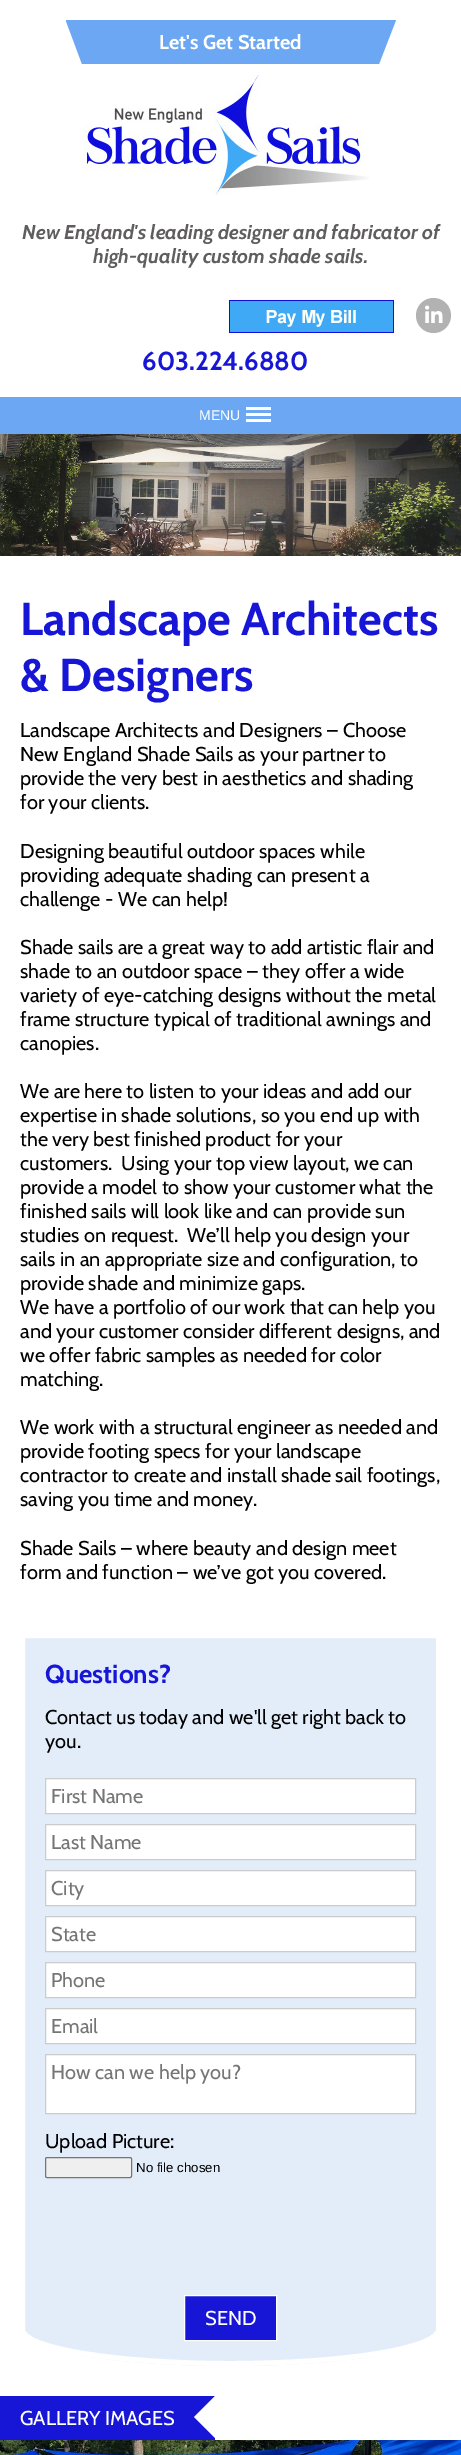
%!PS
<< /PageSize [461 2455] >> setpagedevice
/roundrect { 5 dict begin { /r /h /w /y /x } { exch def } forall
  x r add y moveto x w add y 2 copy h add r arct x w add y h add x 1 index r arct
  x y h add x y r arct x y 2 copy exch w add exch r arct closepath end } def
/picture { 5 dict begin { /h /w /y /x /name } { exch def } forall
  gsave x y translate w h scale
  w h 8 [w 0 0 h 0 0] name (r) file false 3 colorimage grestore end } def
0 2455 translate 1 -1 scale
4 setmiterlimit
1 setgray
0 0 461 2455 rectfill
0.42 0.655 0.949 setrgbcolor
newpath 66 20 moveto 66 21 lineto 82 64 lineto 379 64 lineto 396 20 lineto closepath fill
/Cabin-Bold [20 0 0 -20 0 0] selectfont
1 setgray
159 49 moveto (Let's Get Started) show
(img1.rgb) 84 75 285 120 picture
/Cabin-BoldItalic [20 0 0 -20 0 0] selectfont
0.373 0.365 0.365 setrgbcolor
22 239 moveto (New England's leading designer and fabricator of) show
93 263 moveto (high-quality custom shade sails.) show
(img2.rgb) 229 300 165 33 picture
0.698 setgray
newpath 433.5 315.5 17.5 0 360 arc closepath fill
(img3.rgb) 425 305 18 18 picture
/Cabin-Bold [26 0 0 -26 0 0] selectfont
0.09 0.086 0.839 setrgbcolor
142 370 moveto (603.224.6880) show
0.42 0.655 0.949 setrgbcolor
0 397 461 37 rectfill
/LiberationSans-Regular [14 0 0 -14 0 0] selectfont
1 setgray
199 420 moveto (MENU) show
246 407 25 3 rectfill
246 413 25 3 rectfill
246 419 25 3 rectfill
(img4.rgb) 0 434 461 122 picture
/Cabin-Bold [46 0 0 -46 0 0] selectfont
0.09 0.086 0.839 setrgbcolor
20 635 moveto (Landscape Architects) show
20 691 moveto (& Designers) show
/Cabin-Regular [20 0 0 -20 0 0] selectfont
0 setgray
20 737 moveto (Landscape Architects and Designers – Choose) show
20 761 moveto (New England Shade Sails as your partner to) show
20 785 moveto (provide the very best in aesthetics and shading) show
20 809 moveto (for your clients.) show
20 858 moveto (Designing beautiful outdoor spaces while) show
20 882 moveto (providing adequate shading can present a) show
20 906 moveto (challenge - We can help!) show
20 954 moveto (Shade sails are a great way to add artistic flair and) show
20 978 moveto (shade to an outdoor space – they offer a wide) show
20 1002 moveto (variety of eye-catching designs without the metal) show
20 1026 moveto (frame structure typical of traditional awnings and) show
20 1050 moveto (canopies.) show
20 1098 moveto (We are here to listen to your ideas and add our) show
20 1122 moveto (expertise in shade solutions, so you end up with) show
20 1146 moveto (the very best finished product for your) show
20 1170 moveto (customers.  Using your top view layout, we can) show
20 1194 moveto (provide a model to show your customer what the) show
20 1218 moveto (finished sails will look like and can provide sun) show
20 1242 moveto (studies on request.  We’ll help you design your) show
20 1266 moveto (sails in an appropriate size and configuration, to) show
20 1290 moveto (provide shade and minimize gaps.) show
20 1314 moveto (We have a portfolio of our work that can help you) show
20 1338 moveto (and your customer consider different designs, and) show
20 1362 moveto (we offer fabric samples as needed for color) show
20 1386 moveto (matching.) show
20 1434 moveto (We work with a structural engineer as needed and) show
20 1458 moveto (provide footing specs for your landscape) show
20 1482 moveto (contractor to create and install shade sail footings,) show
20 1506 moveto (saving you time and money.) show
20 1555 moveto (Shade Sails – where beauty and design meet) show
20 1579 moveto (form and function – we’ve got you covered.) show
0.89 0.929 0.98 setrgbcolor
newpath 20 1633 moveto 441 1633 lineto 441 2329 lineto 441 2350 347 2366 230 2366 curveto 114 2366 20 2350 20 2329 curveto closepath fill
1 setgray
5 setlinewidth
newpath 22.5 1635.5 moveto 438.5 1635.5 lineto 438.5 2329.5 lineto 438.5 2348 345.5 2363.5 230.5 2363.5 curveto 115.5 2363.5 22.5 2348 22.5 2329.5 curveto closepath stroke
/Cabin-Bold [26 0 0 -26 0 0] selectfont
0.09 0.086 0.839 setrgbcolor
45 1683 moveto (Questions?) show
/Cabin-Regular [20 0 0 -20 0 0] selectfont
0 setgray
45 1724 moveto (Contact us today and we'll get right back to) show
45 1748 moveto (you.) show
1 setgray
newpath 45.5 1778.5 moveto 415.5 1778.5 lineto 415.5 1813.5 lineto 45.5 1813.5 lineto closepath gsave fill grestore
0.8 setgray
1 setlinewidth
stroke
0.459 setgray
51 1803 moveto (First Name) show
1 setgray
newpath 45.5 1824.5 moveto 415.5 1824.5 lineto 415.5 1859.5 lineto 45.5 1859.5 lineto closepath gsave fill grestore
0.8 setgray
stroke
0.459 setgray
51 1849 moveto (Last Name) show
1 setgray
newpath 45.5 1870.5 moveto 415.5 1870.5 lineto 415.5 1905.5 lineto 45.5 1905.5 lineto closepath gsave fill grestore
0.8 setgray
stroke
0.459 setgray
51 1895 moveto (City) show
1 setgray
newpath 45.5 1916.5 moveto 415.5 1916.5 lineto 415.5 1951.5 lineto 45.5 1951.5 lineto closepath gsave fill grestore
0.8 setgray
stroke
0.459 setgray
51 1941 moveto (State) show
1 setgray
newpath 45.5 1962.5 moveto 415.5 1962.5 lineto 415.5 1997.5 lineto 45.5 1997.5 lineto closepath gsave fill grestore
0.8 setgray
stroke
0.459 setgray
51 1987 moveto (Phone) show
1 setgray
newpath 45.5 2008.5 moveto 415.5 2008.5 lineto 415.5 2043.5 lineto 45.5 2043.5 lineto closepath gsave fill grestore
0.8 setgray
stroke
0.459 setgray
51 2033 moveto (Email) show
1 setgray
newpath 45.5 2054.5 moveto 415.5 2054.5 lineto 415.5 2113.5 lineto 45.5 2113.5 lineto closepath gsave fill grestore
0.8 setgray
stroke
0.459 setgray
51 2079 moveto (How can we help you?) show
0 setgray
45 2148 moveto (Upload Picture:) show
0.937 setgray
45.5 2157.5 86 20 1.5 roundrect gsave fill grestore
0.463 setgray
stroke
/LiberationSans-Regular [13.25 0 0 -13.25 0 0] selectfont
0 setgray
136 2172 moveto (No file chosen) show
0.09 0.086 0.839 setrgbcolor
newpath 184.5 2295.5 moveto 276.5 2295.5 lineto 276.5 2340.5 lineto 184.5 2340.5 lineto closepath gsave fill grestore
1 setgray
stroke
/Cabin-Regular [20 0 0 -20 0 0] selectfont
205 2325 moveto (SEND) show
0.09 0.086 0.839 setrgbcolor
0 2396 215 44 rectfill
1 setgray
20 2425 moveto (GALLERY IMAGES) show
newpath 215 2396 moveto 215 2438 lineto 194 2417 lineto closepath fill
(img5.rgb) 0 2440 461 15 picture
showpage
